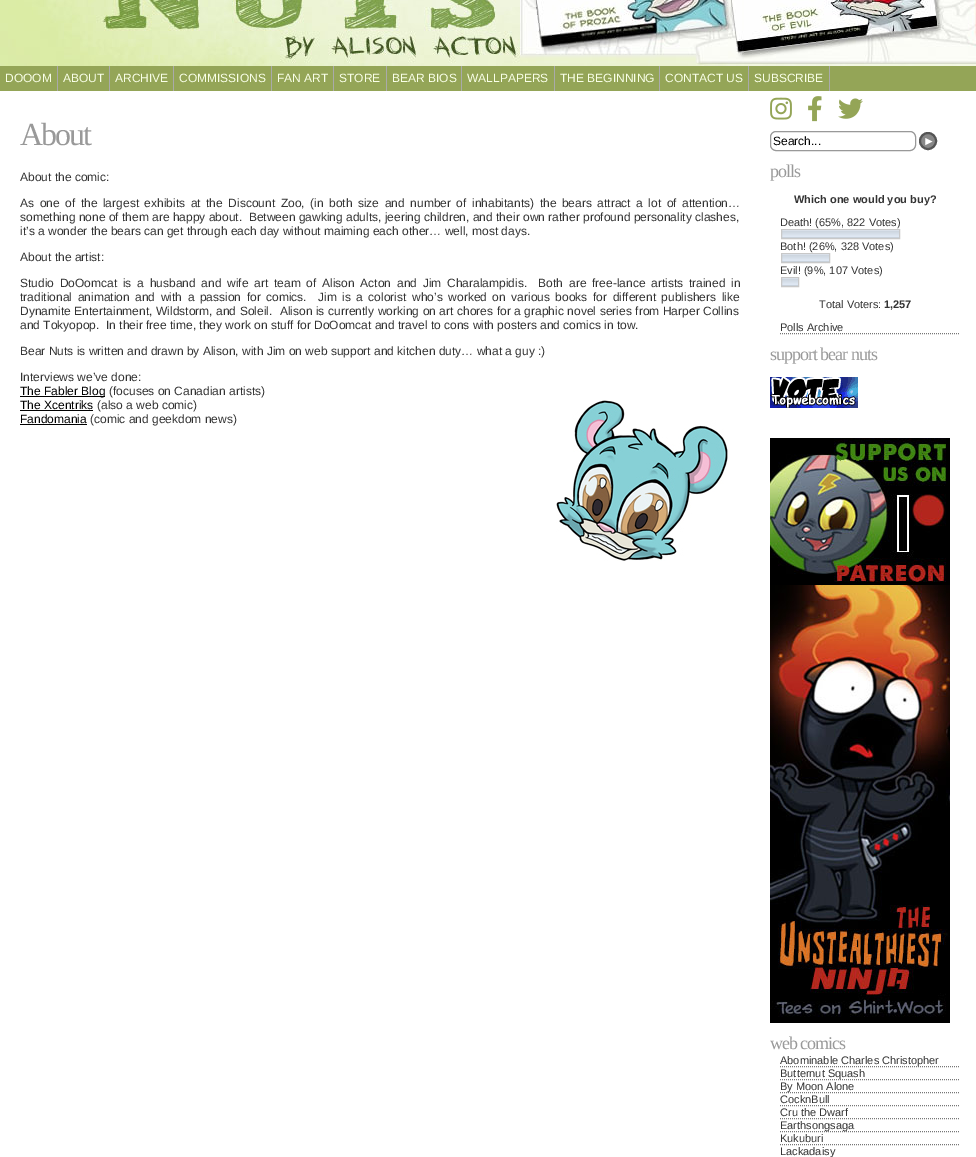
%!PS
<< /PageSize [976 1157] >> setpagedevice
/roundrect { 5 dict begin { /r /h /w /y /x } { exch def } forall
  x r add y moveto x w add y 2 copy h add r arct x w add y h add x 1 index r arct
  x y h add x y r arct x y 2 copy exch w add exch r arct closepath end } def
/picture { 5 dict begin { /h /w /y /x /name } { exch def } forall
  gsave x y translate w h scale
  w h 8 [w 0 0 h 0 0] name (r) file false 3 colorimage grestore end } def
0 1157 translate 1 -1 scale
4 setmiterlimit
1 setgray
0 0 976 1157 rectfill
(img1.rgb) 0 0 520 66 picture
(img2.rgb) 520 0 456 66 picture
0.58 0.647 0.341 setrgbcolor
0 66 976 25 rectfill
0.667 setgray
57 66 1 25 rectfill
/LiberationSans-Regular [12 0 0 -12 0 0] selectfont
0.976 1 0.91 setrgbcolor
5 82 moveto (DOOOM) show
0.667 setgray
109 66 1 25 rectfill
0.976 1 0.91 setrgbcolor
63 82 moveto (ABOUT) show
0.667 setgray
173 66 1 25 rectfill
0.976 1 0.91 setrgbcolor
115 82 moveto (ARCHIVE) show
0.667 setgray
271 66 1 25 rectfill
0.976 1 0.91 setrgbcolor
179 82 moveto (COMMISSIONS) show
0.667 setgray
333 66 1 25 rectfill
0.976 1 0.91 setrgbcolor
277 82 moveto (FAN ART) show
0.667 setgray
386 66 1 25 rectfill
0.976 1 0.91 setrgbcolor
339 82 moveto (STORE) show
0.667 setgray
461 66 1 25 rectfill
0.976 1 0.91 setrgbcolor
392 82 moveto (BEAR BIOS) show
0.667 setgray
554 66 1 25 rectfill
0.976 1 0.91 setrgbcolor
467 82 moveto (WALLPAPERS) show
0.667 setgray
659 66 1 25 rectfill
0.976 1 0.91 setrgbcolor
560 82 moveto (THE BEGINNING) show
0.667 setgray
748 66 1 25 rectfill
0.976 1 0.91 setrgbcolor
665 82 moveto (CONTACT US) show
0.667 setgray
829 66 1 25 rectfill
0.976 1 0.91 setrgbcolor
754 82 moveto (SUBSCRIBE) show
/LiberationSerif-Regular [32 0 0 -32 0 0] selectfont
0.6 setgray
20 145 moveto -2 0 (About) ashow
/LiberationSans-Regular [12 0 0 -12 0 0] selectfont
0.2 setgray
20 181 moveto (About the comic:) show
20 207 moveto 2.2 0 32 (As one of the largest exhibits at the Discount Zoo, \(in both size and number of inhabitants\) the bears attract a lot of attention…) widthshow
20 221 moveto (something none of them are happy about.  Between gawking adults, jeering children, and their own rather profound personality clashes,) show
20 235 moveto (it’s a wonder the bears can get through each day without maiming each other… well, most days.) show
20 261 moveto (About the artist:) show
20 287 moveto 2.4 0 32 (Studio DoOomcat is a husband and wife art team of Alison Acton and Jim Charalampidis.  Both are free-lance artists trained in) widthshow
20 301 moveto 2.2 0 32 (traditional animation and with a passion for comics.  Jim is a colorist who’s worked on various books for different publishers like) widthshow
20 315 moveto 0.25 0 32 (Dynamite Entertainment, Wildstorm, and Soleil.  Alison is currently working on art chores for a graphic novel series from Harper Collins) widthshow
20 329 moveto (and Tokyopop.  In their free time, they work on stuff for DoOomcat and travel to cons with posters and comics in tow.) show
20 355 moveto (Bear Nuts is written and drawn by Alison, with Jim on web support and kitchen duty… what a guy :\)) show
20 381 moveto (Interviews we’ve done:) show
0 setgray
20 396 85 1 rectfill
20 395 moveto (The Fabler Blog) show
0.2 setgray
109 395 moveto (\(focuses on Canadian artists\)) show
0 setgray
20 409 moveto (The Xcentriks) show
20 410 73 1 rectfill
0.2 setgray
97 409 moveto (\(also a web comic\)) show
0 setgray
20 423 moveto (Fandomania) show
20 424 67 1 rectfill
0.2 setgray
90 423 moveto (\(comic and geekdom news\)) show
(img3.rgb) 556 400 172 161 picture
(img4.rgb) 770 97 22 23 picture
(img5.rgb) 808 96 14 26 picture
(img6.rgb) 838 98 25 21 picture
0.6 setgray
770.5 131.5 145 19 5.5 roundrect stroke
0 setgray
773 145 moveto (Search...) show
0.533 setgray
newpath 928 141 8 0 360 arc closepath gsave fill grestore
0.333 setgray
2 setlinewidth
stroke
1 setgray
923 145 moveto (►) show
/LiberationSerif-Regular [18 0 0 -18 0 0] selectfont
0.6 setgray
770 177 moveto -1 0 (polls) ashow
/LiberationSans-Bold [11 0 0 -11 0 0] selectfont
0.2 setgray
794 203 moveto (Which one would you buy?) show
/LiberationSans-Regular [11 0 0 -11 0 0] selectfont
780 226 moveto (Death! \(65%, 822 Votes\)) show
(img7.rgb) 782 230 117 8 picture
0.784 setgray
1 setlinewidth
781.5 229.5 118 9 rectstroke
0.2 setgray
780 250 moveto (Both! \(26%, 328 Votes\)) show
(img8.rgb) 782 254 47 8 picture
0.784 setgray
781.5 253.5 48 9 rectstroke
0.2 setgray
780 274 moveto (Evil! \(9%, 107 Votes\)) show
(img9.rgb) 782 278 16 8 picture
0.784 setgray
781.5 277.5 17 9 rectstroke
0.2 setgray
819 308 moveto (Total Voters:) show
/LiberationSans-Bold [11 0 0 -11 0 0] selectfont
884 308 moveto (1,257) show
0.467 setgray
[1 1] 0 setdash
newpath 780 333.5 moveto 960 333.5 lineto stroke
/LiberationSans-Regular [11 0 0 -11 0 0] selectfont
0.2 setgray
780 331 moveto (Polls Archive) show
/LiberationSerif-Regular [18 0 0 -18 0 0] selectfont
0.6 setgray
770 360 moveto -1 0 (support bear nuts) ashow
(img10.rgb) 770 377 88 31 picture
(img11.rgb) 770 438 180 147 picture
(img12.rgb) 770 585 180 438 picture
770 1049 moveto -1 0 (web comics) ashow
0.467 setgray
newpath 780 1066.5 moveto 960 1066.5 lineto stroke
/LiberationSans-Regular [11 0 0 -11 0 0] selectfont
0.2 setgray
780 1064 moveto (Abominable Charles Christopher) show
0.467 setgray
newpath 780 1079.5 moveto 960 1079.5 lineto stroke
0.2 setgray
780 1077 moveto (Butternut Squash) show
0.467 setgray
newpath 780 1092.5 moveto 960 1092.5 lineto stroke
0.2 setgray
780 1090 moveto (By Moon Alone) show
0.467 setgray
newpath 780 1105.5 moveto 960 1105.5 lineto stroke
0.2 setgray
780 1103 moveto (CocknBull) show
0.467 setgray
newpath 780 1118.5 moveto 960 1118.5 lineto stroke
0.2 setgray
780 1116 moveto (Cru the Dwarf) show
0.467 setgray
newpath 780 1131.5 moveto 960 1131.5 lineto stroke
0.2 setgray
780 1129 moveto (Earthsongsaga) show
0.467 setgray
newpath 780 1144.5 moveto 960 1144.5 lineto stroke
0.2 setgray
780 1142 moveto (Kukuburi) show
780 1155 moveto (Lackadaisy) show
showpage
